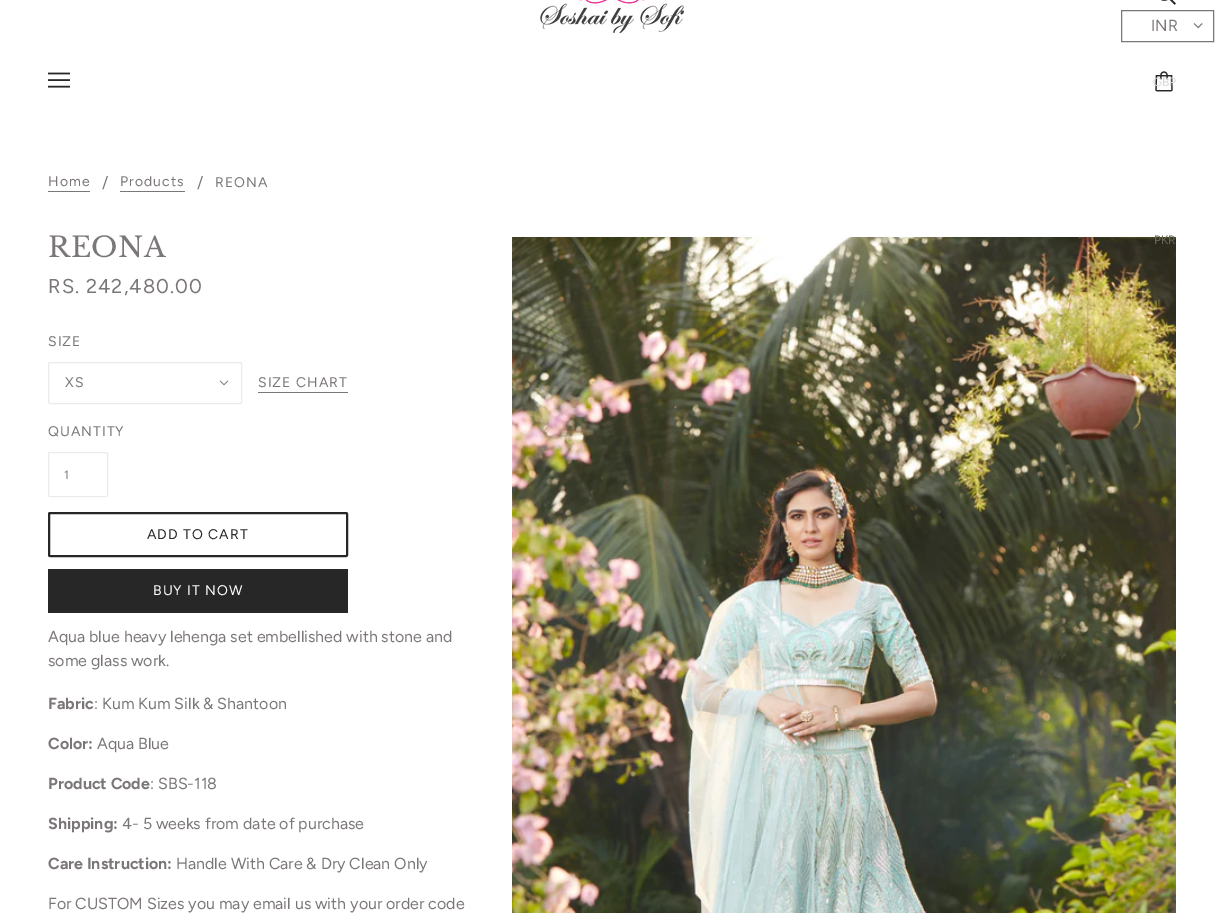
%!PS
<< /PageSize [1224 913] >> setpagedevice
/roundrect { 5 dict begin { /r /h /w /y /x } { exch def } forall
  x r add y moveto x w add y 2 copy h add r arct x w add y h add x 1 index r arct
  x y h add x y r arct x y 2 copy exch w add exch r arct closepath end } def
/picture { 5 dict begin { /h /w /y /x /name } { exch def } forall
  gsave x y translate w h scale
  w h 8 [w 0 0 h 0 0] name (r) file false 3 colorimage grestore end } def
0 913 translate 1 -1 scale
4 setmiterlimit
1 setgray
0 0 1224 913 rectfill
0.486 0.467 0.467 setrgbcolor
1121.5 10.5 92 31 rectstroke
/Figtree-Regular [16 0 0 -16 0 0] selectfont
1151 31 moveto (INR) show
(img5.rgb) 1155 71 18 21 picture
/Figtree-Regular [12 0 0 -12 0 0] selectfont
0.855 setgray
1153 86 moveto (GBP) show
(img6.rgb) 512 237 664 676 picture
0.404 0.404 0.349 setrgbcolor
1154 244 moveto (PKR) show
(img1.rgb) 1193 23 10 6 picture
(img2.rgb) 540 0 144 34 picture
(img3.rgb) 1161 0 15 5 picture
(img4.rgb) 48 72 22 16 picture
/Figtree-Regular [14 0 0 -14 0 0] selectfont
0.486 0.467 0.467 setrgbcolor
48 186 moveto 1 0 (Home) ashow
48 191 42 1 rectfill
/Figtree-Regular [16 0 0 -16 0 0] selectfont
102 188 moveto (/) show
/Figtree-Regular [14 0 0 -14 0 0] selectfont
120 186 moveto 1 0 (Products) ashow
120 191 65 1 rectfill
/Figtree-Regular [16 0 0 -16 0 0] selectfont
197 188 moveto (/) show
/Figtree-Regular [14 0 0 -14 0 0] selectfont
215 187 moveto 1 0 (REONA) ashow
/LibreBaskerville-Regular [28 0 0 -28 0 0] selectfont
48 257 moveto 0.5 0 (REONA) ashow
/Figtree-Regular [20 0 0 -20 0 0] selectfont
48 293 moveto 1 0 (RS. 242,480.00) ashow
/Figtree-Regular [14 0 0 -14 0 0] selectfont
48 346 moveto 1 0 (SIZE) ashow
0.922 setgray
48.5 362.5 193 41 1.5 roundrect stroke
0.486 0.467 0.467 setrgbcolor
65 387 moveto 1 0 (XS) ashow
(img7.rgb) 219 380 10 6 picture
258 387 moveto 1 0 (SIZE CHART) ashow
258 392 90 1 rectfill
48 436 moveto 1 0 (QUANTITY) ashow
0.922 setgray
48.5 452.5 59 44 1.5 roundrect stroke
/Figtree-Regular [12 0 0 -12 0 0] selectfont
0.486 0.467 0.467 setrgbcolor
64 479 moveto 1 0 (1) ashow
0.153 setgray
2 setlinewidth
49 513 298 43 1 roundrect stroke
/Figtree-Regular [14 0 0 -14 0 0] selectfont
147 539 moveto 1 0 (ADD TO CART) ashow
48 569 300 44 rectfill
1 setgray
153 595 moveto 1 0 (BUY IT NOW) ashow
/Figtree-Regular [16 0 0 -16 0 0] selectfont
0.486 0.467 0.467 setrgbcolor
48 642 moveto (Aqua blue heavy lehenga set embellished with stone and) show
48 666 moveto (some glass work.) show
/Figtree-Bold [16 0 0 -16 0 0] selectfont
48 709 moveto (Fabric) show
/Figtree-Regular [16 0 0 -16 0 0] selectfont
94 709 moveto (: Kum Kum Silk & Shantoon) show
/Figtree-Bold [16 0 0 -16 0 0] selectfont
48 749 moveto (Color:) show
/Figtree-Regular [16 0 0 -16 0 0] selectfont
97 749 moveto (Aqua Blue) show
/Figtree-Bold [16 0 0 -16 0 0] selectfont
48 789 moveto (Product Code) show
/Figtree-Regular [16 0 0 -16 0 0] selectfont
150 789 moveto (: SBS-118) show
/Figtree-Bold [16 0 0 -16 0 0] selectfont
48 829 moveto (Shipping:) show
/Figtree-Regular [16 0 0 -16 0 0] selectfont
122 829 moveto (4- 5 weeks from date of purchase) show
/Figtree-Bold [16 0 0 -16 0 0] selectfont
48 869 moveto (Care Instruction:) show
/Figtree-Regular [16 0 0 -16 0 0] selectfont
176 869 moveto (Handle With Care & Dry Clean Only) show
48 909 moveto (For CUSTOM Sizes you may email us with your order code) show
showpage
